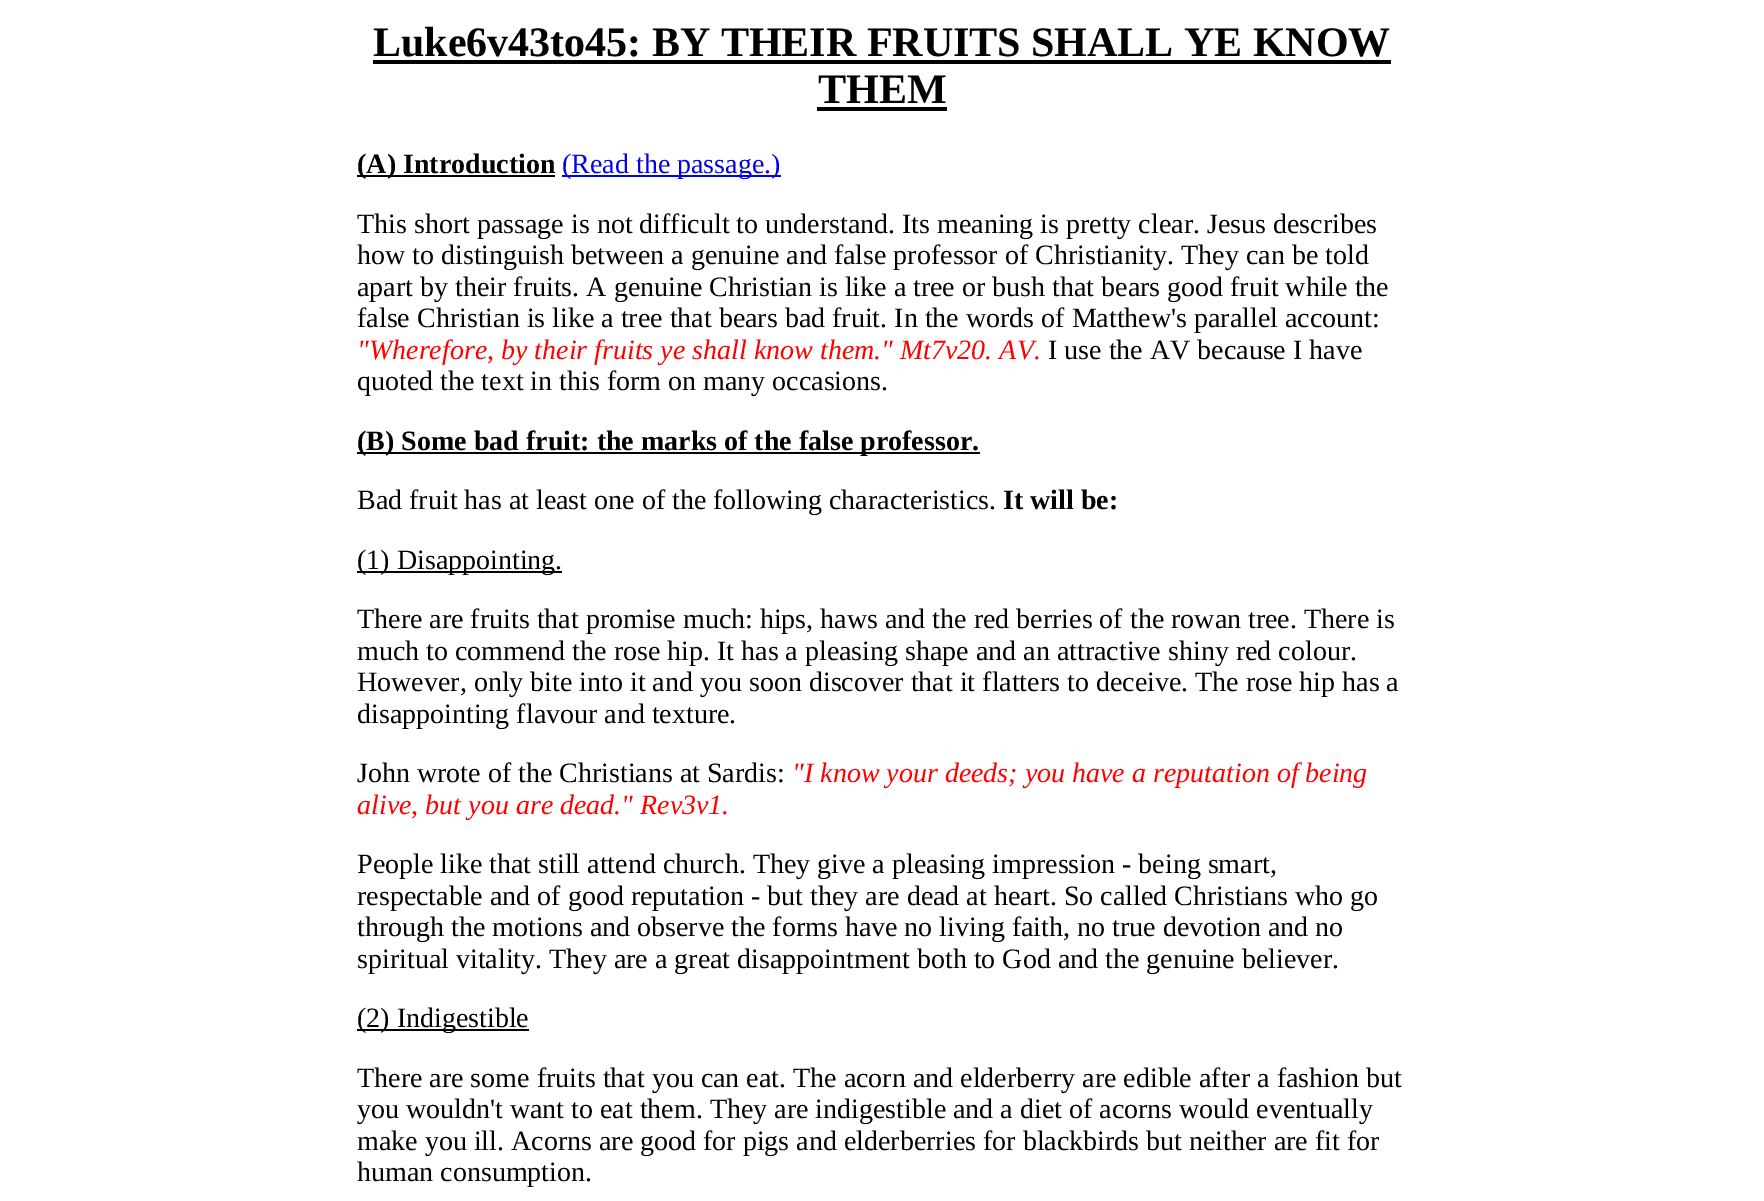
%!PS
<< /PageSize [1764 1201] >> setpagedevice
0 1201 translate 1 -1 scale
4 setmiterlimit
1 setgray
0 0 1764 1201 rectfill
/LiberationSerif-Bold [42 0 0 -42 0 0] selectfont
0 setgray
373 56 moveto (Luke6v43to45: BY THEIR FRUITS SHALL YE KNOW) show
373 60 1018 4 rectfill
818 103 moveto (THEM) show
817 107 130 4 rectfill
357 175 198 2 rectfill
/LiberationSerif-Bold [28 0 0 -28 0 0] selectfont
357 173 moveto (\(A\) Introduction) show
0 0 0.933 setrgbcolor
562 175 219 2 rectfill
/LiberationSerif-Regular [28 0 0 -28 0 0] selectfont
562 173 moveto (\(Read the passage.\)) show
0 setgray
357 233 moveto (This short passage is not difficult to understand. Its meaning is pretty clear. Jesus describes) show
357 264 moveto (how to distinguish between a genuine and false professor of Christianity. They can be told) show
357 296 moveto (apart by their fruits. A genuine Christian is like a tree or bush that bears good fruit while the) show
357 327 moveto (false Christian is like a tree that bears bad fruit. In the words of Matthew's parallel account:) show
/LiberationSerif-Italic [28 0 0 -28 0 0] selectfont
1 0 0 setrgbcolor
357 359 moveto ("Wherefore, by their fruits ye shall know them." Mt7v20. AV.) show
/LiberationSerif-Regular [28 0 0 -28 0 0] selectfont
0 setgray
1048 359 moveto (I use the AV because I have) show
357 390 moveto (quoted the text in this form on many occasions.) show
357 452 623 2 rectfill
/LiberationSerif-Bold [28 0 0 -28 0 0] selectfont
357 450 moveto (\(B\) Some bad fruit: the marks of the false professor.) show
/LiberationSerif-Regular [28 0 0 -28 0 0] selectfont
357 509 moveto (Bad fruit has at least one of the following characteristics.) show
/LiberationSerif-Bold [28 0 0 -28 0 0] selectfont
1003 509 moveto (It will be:) show
357 571 205 2 rectfill
/LiberationSerif-Regular [28 0 0 -28 0 0] selectfont
357 569 moveto (\(1\) Disappointing.) show
357 628 moveto (There are fruits that promise much: hips, haws and the red berries of the rowan tree. There is) show
357 660 moveto (much to commend the rose hip. It has a pleasing shape and an attractive shiny red colour.) show
357 691 moveto (However, only bite into it and you soon discover that it flatters to deceive. The rose hip has a) show
357 723 moveto (disappointing flavour and texture.) show
357 782 moveto (John wrote of the Christians at Sardis:) show
/LiberationSerif-Italic [28 0 0 -28 0 0] selectfont
1 0 0 setrgbcolor
792 782 moveto ("I know your deeds; you have a reputation of being) show
357 814 moveto (alive, but you are dead." Rev3v1.) show
/LiberationSerif-Regular [28 0 0 -28 0 0] selectfont
0 setgray
357 873 moveto (People like that still attend church. They give a pleasing impression - being smart,) show
357 905 moveto (respectable and of good reputation - but they are dead at heart. So called Christians who go) show
357 936 moveto (through the motions and observe the forms have no living faith, no true devotion and no) show
357 968 moveto (spiritual vitality. They are a great disappointment both to God and the genuine believer.) show
357 1029 172 2 rectfill
357 1027 moveto (\(2\) Indigestible) show
357 1087 moveto (There are some fruits that you can eat. The acorn and elderberry are edible after a fashion but) show
357 1118 moveto (you wouldn't want to eat them. They are indigestible and a diet of acorns would eventually) show
357 1150 moveto (make you ill. Acorns are good for pigs and elderberries for blackbirds but neither are fit for) show
357 1181 moveto (human consumption.) show
showpage
